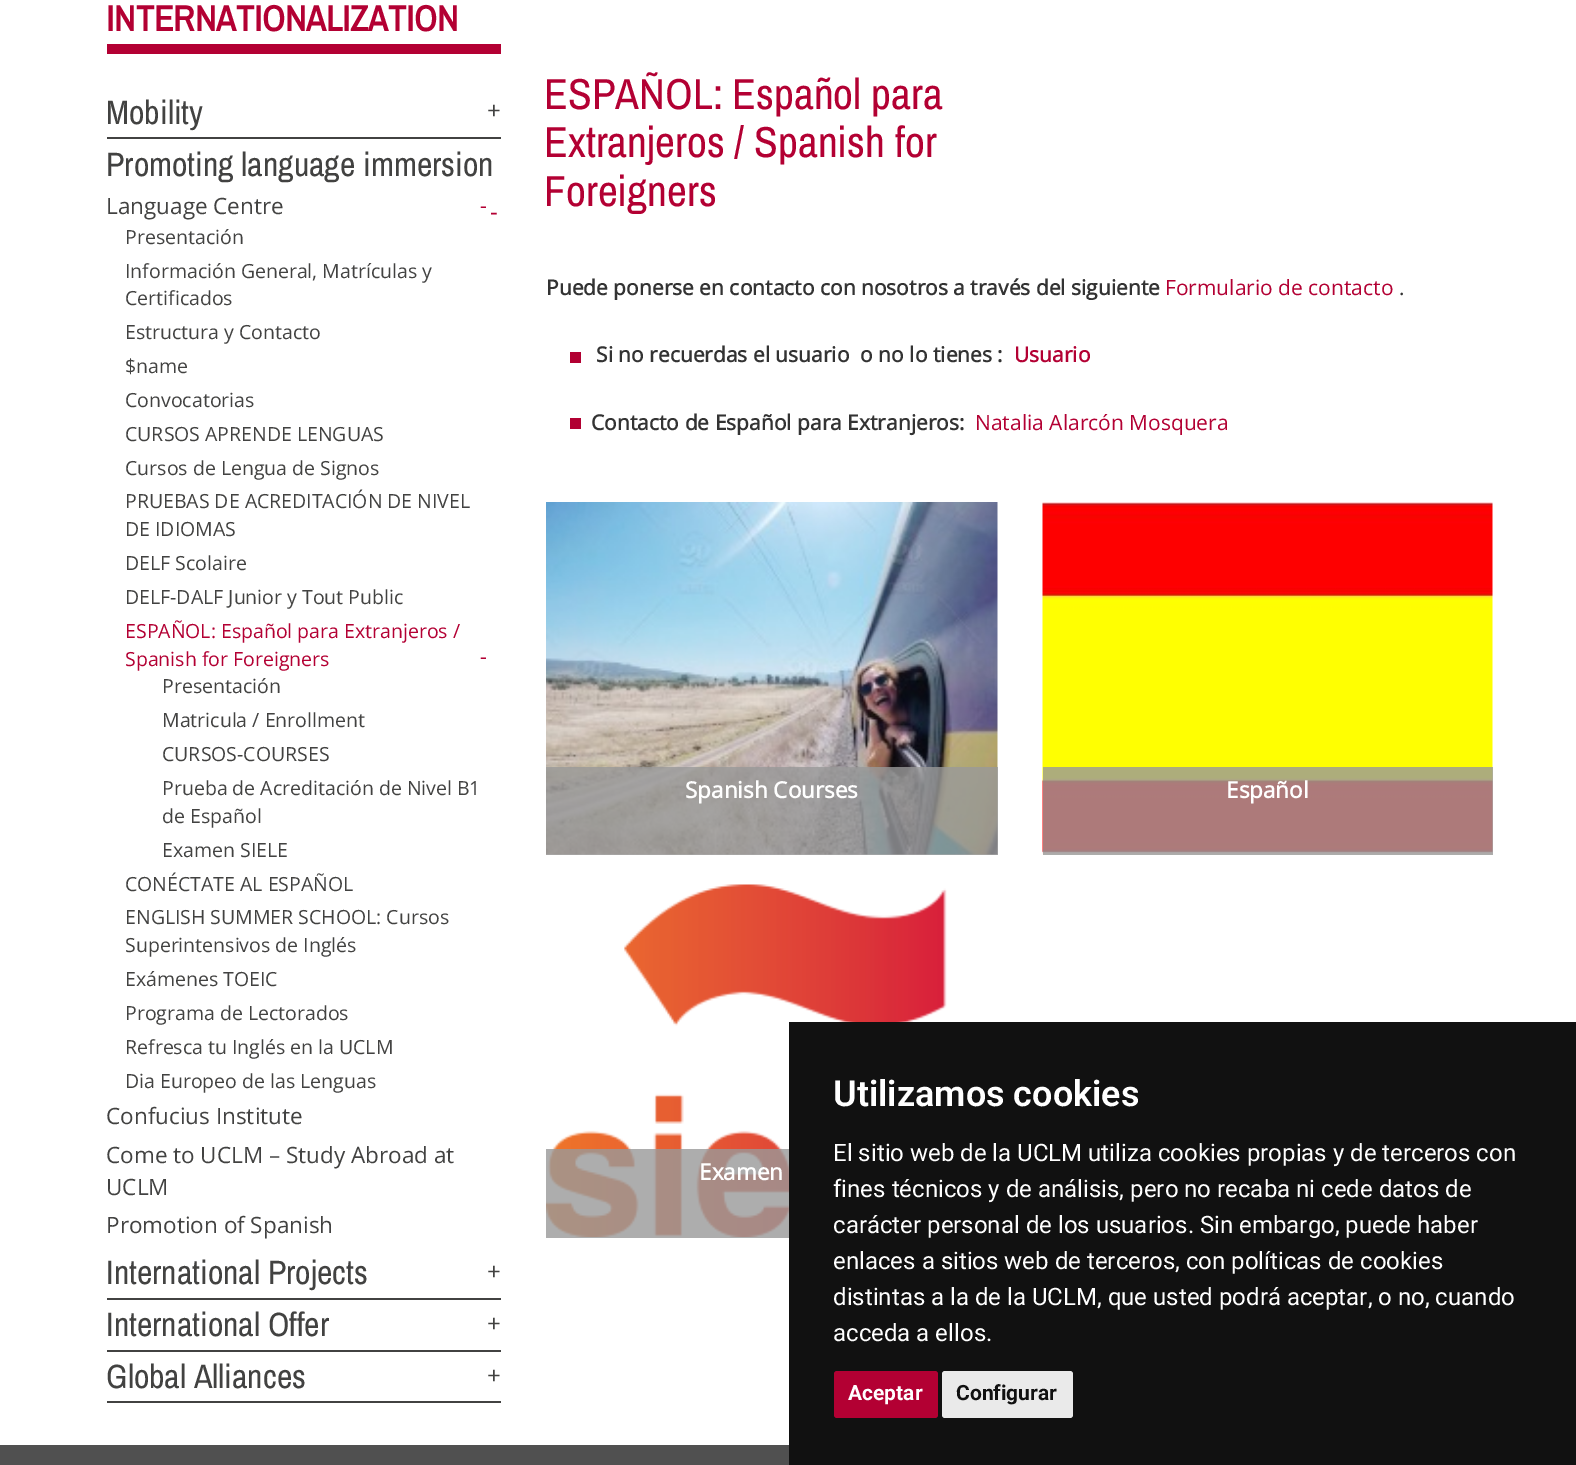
%!PS
<< /PageSize [1576 1465] /PageUsesTransparency true >> setpagedevice
/alpha { dup .setfillconstantalpha .setstrokeconstantalpha } def
/roundrect { 5 dict begin { /r /h /w /y /x } { exch def } forall
  x r add y moveto x w add y 2 copy h add r arct x w add y h add x 1 index r arct
  x y h add x y r arct x y 2 copy exch w add exch r arct closepath end } def
/picture { 5 dict begin { /h /w /y /x /name } { exch def } forall
  gsave x y translate w h scale
  w h 8 [w 0 0 h 0 0] name (r) file false 3 colorimage grestore end } def
0 .pushpdf14devicefilter
0 1465 translate 1 -1 scale
4 setmiterlimit
1 setgray
0 0 1576 1465 rectfill
0.702 0 0.2 setrgbcolor
107 44 394 10 rectfill
/ArchivoNarrow-Bold [36 0 0 -36 0 0] selectfont
106 31 moveto (INTERNATIONALIZATION) show
0.259 0.259 0.255 setrgbcolor
107 137 394 2 rectfill
/ArchivoNarrow-Regular [33.75 0 0 -33.75 0 0] selectfont
106 124 moveto (Mobility) show
/OpenSans-Regular [24 0 0 -24 0 0] selectfont
487 119 moveto (+) show
/ArchivoNarrow-Regular [33.75 0 0 -33.75 0 0] selectfont
106 176 moveto (Promoting language immersion) show
/OpenSans-Regular [24 0 0 -24 0 0] selectfont
0.702 0 0.2 setrgbcolor
490 220 moveto (-) show
/OpenSans-Regular [22.5 0 0 -22.5 0 0] selectfont
0.259 0.259 0.255 setrgbcolor
106 214 moveto (Language Centre) show
/OpenSans-Regular [21 0 0 -21 0 0] selectfont
0.702 0 0.2 setrgbcolor
480 213 moveto (-) show
/OpenSans-Regular [19.5 0 0 -19.5 0 0] selectfont
0.259 0.259 0.255 setrgbcolor
125 244 moveto (Presentación) show
125 278 moveto (Información General, Matrículas y) show
125 305 moveto (Certificados) show
125 339 moveto (Estructura y Contacto) show
125 373 moveto ($name) show
125 407 moveto (Convocatorias) show
125 441 moveto (CURSOS APRENDE LENGUAS) show
125 475 moveto (Cursos de Lengua de Signos) show
125 508 moveto (PRUEBAS DE ACREDITACIÓN DE NIVEL) show
125 536 moveto (DE IDIOMAS) show
125 570 moveto (DELF Scolaire) show
125 604 moveto (DELF-DALF Junior y Tout Public) show
0.702 0 0.2 setrgbcolor
125 638 moveto (ESPAÑOL: Español para Extranjeros /) show
125 666 moveto (Spanish for Foreigners) show
/OpenSans-Regular [21 0 0 -21 0 0] selectfont
480 664 moveto (-) show
/OpenSans-Regular [19.5 0 0 -19.5 0 0] selectfont
0.259 0.259 0.255 setrgbcolor
162 693 moveto (Presentación) show
162 727 moveto (Matricula / Enrollment) show
162 761 moveto (CURSOS-COURSES) show
162 795 moveto (Prueba de Acreditación de Nivel B1) show
162 823 moveto (de Español) show
162 857 moveto (Examen SIELE) show
125 891 moveto (CONÉCTATE AL ESPAÑOL) show
125 924 moveto (ENGLISH SUMMER SCHOOL: Cursos) show
125 952 moveto (Superintensivos de Inglés) show
125 986 moveto (Exámenes TOEIC) show
125 1020 moveto (Programa de Lectorados) show
125 1054 moveto (Refresca tu Inglés en la UCLM) show
125 1088 moveto (Dia Europeo de las Lenguas) show
/OpenSans-Regular [22.5 0 0 -22.5 0 0] selectfont
106 1124 moveto (Confucius Institute) show
106 1163 moveto (Come to UCLM – Study Abroad at) show
106 1195 moveto (UCLM) show
106 1233 moveto (Promotion of Spanish) show
107 1298 394 2 rectfill
/ArchivoNarrow-Regular [33.75 0 0 -33.75 0 0] selectfont
106 1284 moveto (International Projects) show
/OpenSans-Regular [24 0 0 -24 0 0] selectfont
487 1280 moveto (+) show
107 1350 394 2 rectfill
/ArchivoNarrow-Regular [33.75 0 0 -33.75 0 0] selectfont
106 1336 moveto (International Offer) show
/OpenSans-Regular [24 0 0 -24 0 0] selectfont
487 1332 moveto (+) show
107 1401 394 2 rectfill
/ArchivoNarrow-Regular [33.75 0 0 -33.75 0 0] selectfont
106 1388 moveto (Global Alliances) show
/OpenSans-Regular [24 0 0 -24 0 0] selectfont
487 1384 moveto (+) show
/ArchivoNarrow-Regular [43.5 0 0 -43.5 0 0] selectfont
0.702 0 0.2 setrgbcolor
544 109 moveto (ESPAÑOL: Español para) show
544 157 moveto (Extranjeros / Spanish for) show
544 206 moveto (Foreigners) show
/OpenSans-Bold [21 0 0 -21 0 0] selectfont
0.2 setgray
546 295 moveto (Puede ponerse en contacto con nosotros a través del siguiente) show
/OpenSans-Regular [21 0 0 -21 0 0] selectfont
0.702 0 0.2 setrgbcolor
1165 295 moveto (Formulario de contacto) show
0.2 setgray
1399 295 moveto (.) show
0.698 0 0.196 setrgbcolor
570 352 11 11 rectfill
/OpenSans-Bold [21 0 0 -21 0 0] selectfont
0.2 setgray
596 362 moveto (Si no recuerdas el usuario  o no lo tienes :) show
0.702 0 0.2 setrgbcolor
1014 362 moveto (Usuario) show
0.698 0 0.196 setrgbcolor
570 418 11 11 rectfill
0.2 setgray
591 430 moveto (Contacto de Español para Extranjeros:) show
/OpenSans-Regular [21 0 0 -21 0 0] selectfont
0.702 0 0.2 setrgbcolor
975 430 moveto (Natalia Alarcón Mosquera) show
(img1.rgb) 546 502 452 353 picture
0.8 alpha
0.6 setgray
546 767 452 88 rectfill
/OpenSans-Bold [22.5 0 0 -22.5 0 0] selectfont
1 alpha
1 setgray
685 798 moveto (Spanish Courses) show
(img2.rgb) 1042 502 451 353 picture
0.8 alpha
0.6 setgray
1043 767 450 88 rectfill
1 alpha
1 setgray
1226 798 moveto (Español) show
(img3.rgb) 546 884 401 353 picture
0.8 alpha
0.6 setgray
546 1149 243 89 rectfill
1 alpha
1 setgray
699 1180 moveto (Examen) show
0.314 setgray
0 1445 789 20 rectfill
0.067 setgray
789 1022 787 443 rectfill
/Roboto-SemiBold [36 0 0 -36 0 0] selectfont
1 setgray
833 1106 moveto (Utilizamos cookies) show
/Roboto-Regular [24 0 0 -24 0 0] selectfont
833 1161 moveto (El sitio web de la UCLM utiliza cookies propias y de terceros con) show
833 1197 moveto (fines técnicos y de análisis, pero no recaba ni cede datos de) show
833 1233 moveto (carácter personal de los usuarios. Sin embargo, puede haber) show
833 1269 moveto (enlaces a sitios web de terceros, con políticas de cookies) show
833 1305 moveto (distintas a la de la UCLM, que usted podrá aceptar, o no, cuando) show
833 1341 moveto (acceda a ellos.) show
0.702 0 0.2 setrgbcolor
834 1371 104 47 3 roundrect fill
/Roboto-Bold [21 0 0 -21 0 0] selectfont
1 setgray
848 1400 moveto (Aceptar) show
0.918 setgray
942 1371 131 47 3 roundrect fill
0.067 setgray
956 1400 moveto (Configurar) show
.poppdf14devicefilter showpage
